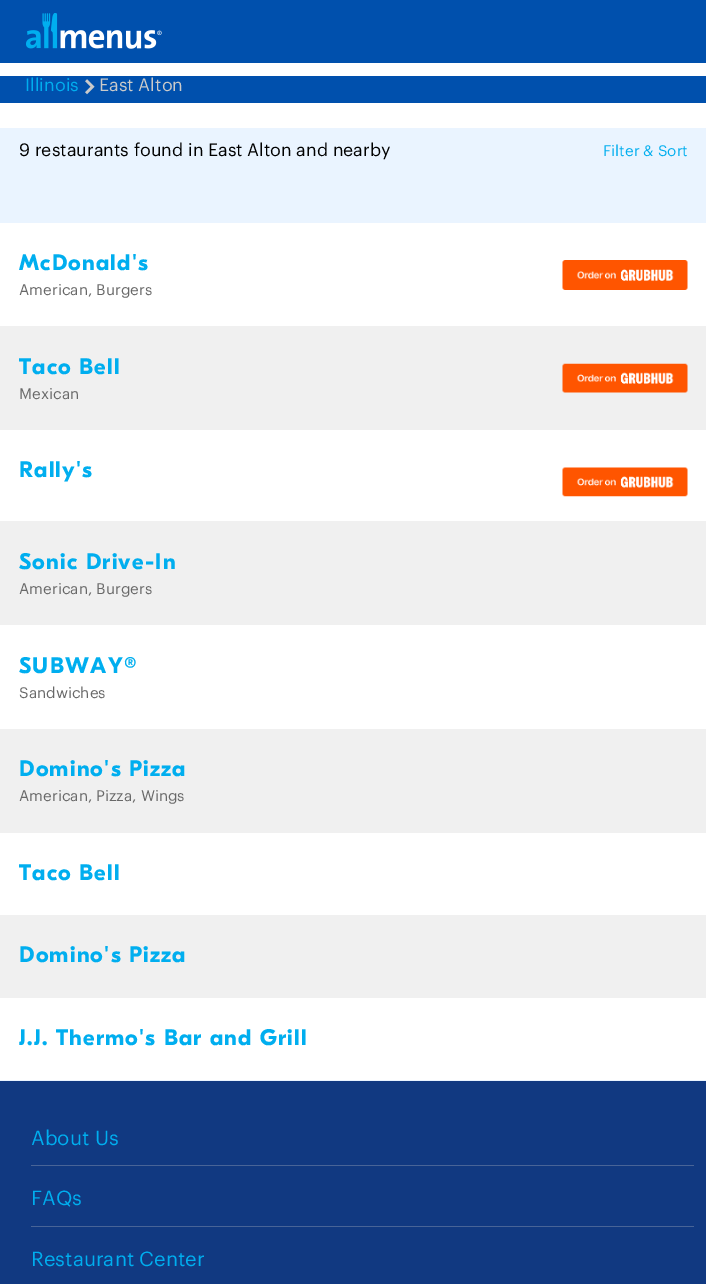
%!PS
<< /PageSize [706 1284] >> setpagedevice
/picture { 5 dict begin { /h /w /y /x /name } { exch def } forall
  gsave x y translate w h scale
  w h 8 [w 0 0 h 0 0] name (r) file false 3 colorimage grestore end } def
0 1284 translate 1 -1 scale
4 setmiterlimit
1 setgray
0 0 706 1284 rectfill
0 0.314 0.678 setrgbcolor
0 0 706 63 rectfill
(img1.rgb) 26 13 136 36 picture
0 76 706 27 rectfill
/Graphik-Regular [17.5 0 0 -17.5 0 0] selectfont
0 0.682 0.937 setrgbcolor
25 91 moveto (Illinois) show
(img2.rgb) 85 79 10 16 picture
0.792 setgray
99 91 moveto (East Alton) show
0.918 0.957 1 setrgbcolor
0 128 706 95 rectfill
0 setgray
19 156 moveto (9 restaurants found in East Alton and nearby) show
/Graphik-Regular [15 0 0 -15 0 0] selectfont
0 0.682 0.937 setrgbcolor
603 156 moveto (Filter & Sort) show
0.918 0.957 1 setrgbcolor
0 1080 706 1 rectfill
/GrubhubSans-Bold [22.5 0 0 -22.5 0 0] selectfont
0 0.682 0.937 setrgbcolor
19 270 moveto 1.25 0 (McDonald's) ashow
/Graphik-Regular [15 0 0 -15 0 0] selectfont
0.408 setgray
19 295 moveto (American, Burgers) show
(img3.rgb) 562 260 126 30 picture
0.941 setgray
0 326 706 104 rectfill
gsave
19 351 390 33 rectclip
/GrubhubSans-Bold [22.5 0 0 -22.5 0 0] selectfont
0 0.682 0.937 setrgbcolor
19 374 moveto 1.25 0 (Taco Bell) ashow
grestore
0.408 setgray
19 399 moveto (Mexican) show
(img4.rgb) 562 363 126 30 picture
/GrubhubSans-Bold [22.5 0 0 -22.5 0 0] selectfont
0 0.682 0.937 setrgbcolor
19 477 moveto 1.25 0 (Rally's) ashow
(img5.rgb) 562 467 126 30 picture
0.941 setgray
0 521 706 104 rectfill
0 0.682 0.937 setrgbcolor
19 569 moveto 1.25 0 (Sonic Drive-In) ashow
/Graphik-Regular [15 0 0 -15 0 0] selectfont
0.408 setgray
19 594 moveto (American, Burgers) show
/GrubhubSans-Bold [22.5 0 0 -22.5 0 0] selectfont
0 0.682 0.937 setrgbcolor
19 673 moveto 1.25 0 (SUBWAY®) ashow
/Graphik-Regular [15 0 0 -15 0 0] selectfont
0.408 setgray
19 698 moveto (Sandwiches) show
0.941 setgray
0 729 706 104 rectfill
/GrubhubSans-Bold [22.5 0 0 -22.5 0 0] selectfont
0 0.682 0.937 setrgbcolor
19 776 moveto 1.25 0 (Domino's Pizza) ashow
/Graphik-Regular [15 0 0 -15 0 0] selectfont
0.408 setgray
19 801 moveto (American, Pizza, Wings) show
gsave
19 858 390 32 rectclip
/GrubhubSans-Bold [22.5 0 0 -22.5 0 0] selectfont
0 0.682 0.937 setrgbcolor
19 880 moveto 1.25 0 (Taco Bell) ashow
grestore
0.941 setgray
0 915 706 83 rectfill
/GrubhubSans-Bold [22.5 0 0 -22.5 0 0] selectfont
0 0.682 0.937 setrgbcolor
19 962 moveto 1.25 0 (Domino's Pizza) ashow
19 1045 moveto 1.25 0 (J.J. Thermo's Bar and Grill) ashow
0.067 0.224 0.506 setrgbcolor
0 1081 706 203 rectfill
0.282 0.392 0.592 setrgbcolor
31 1165 663 1 rectfill
/Graphik-Regular [20 0 0 -20 0 0] selectfont
0 0.682 0.937 setrgbcolor
31 1145 moveto (About Us) show
0.282 0.392 0.592 setrgbcolor
31 1226 663 1 rectfill
0 0.682 0.937 setrgbcolor
31 1205 moveto (FAQs) show
31 1266 moveto (Restaurant Center) show
showpage
